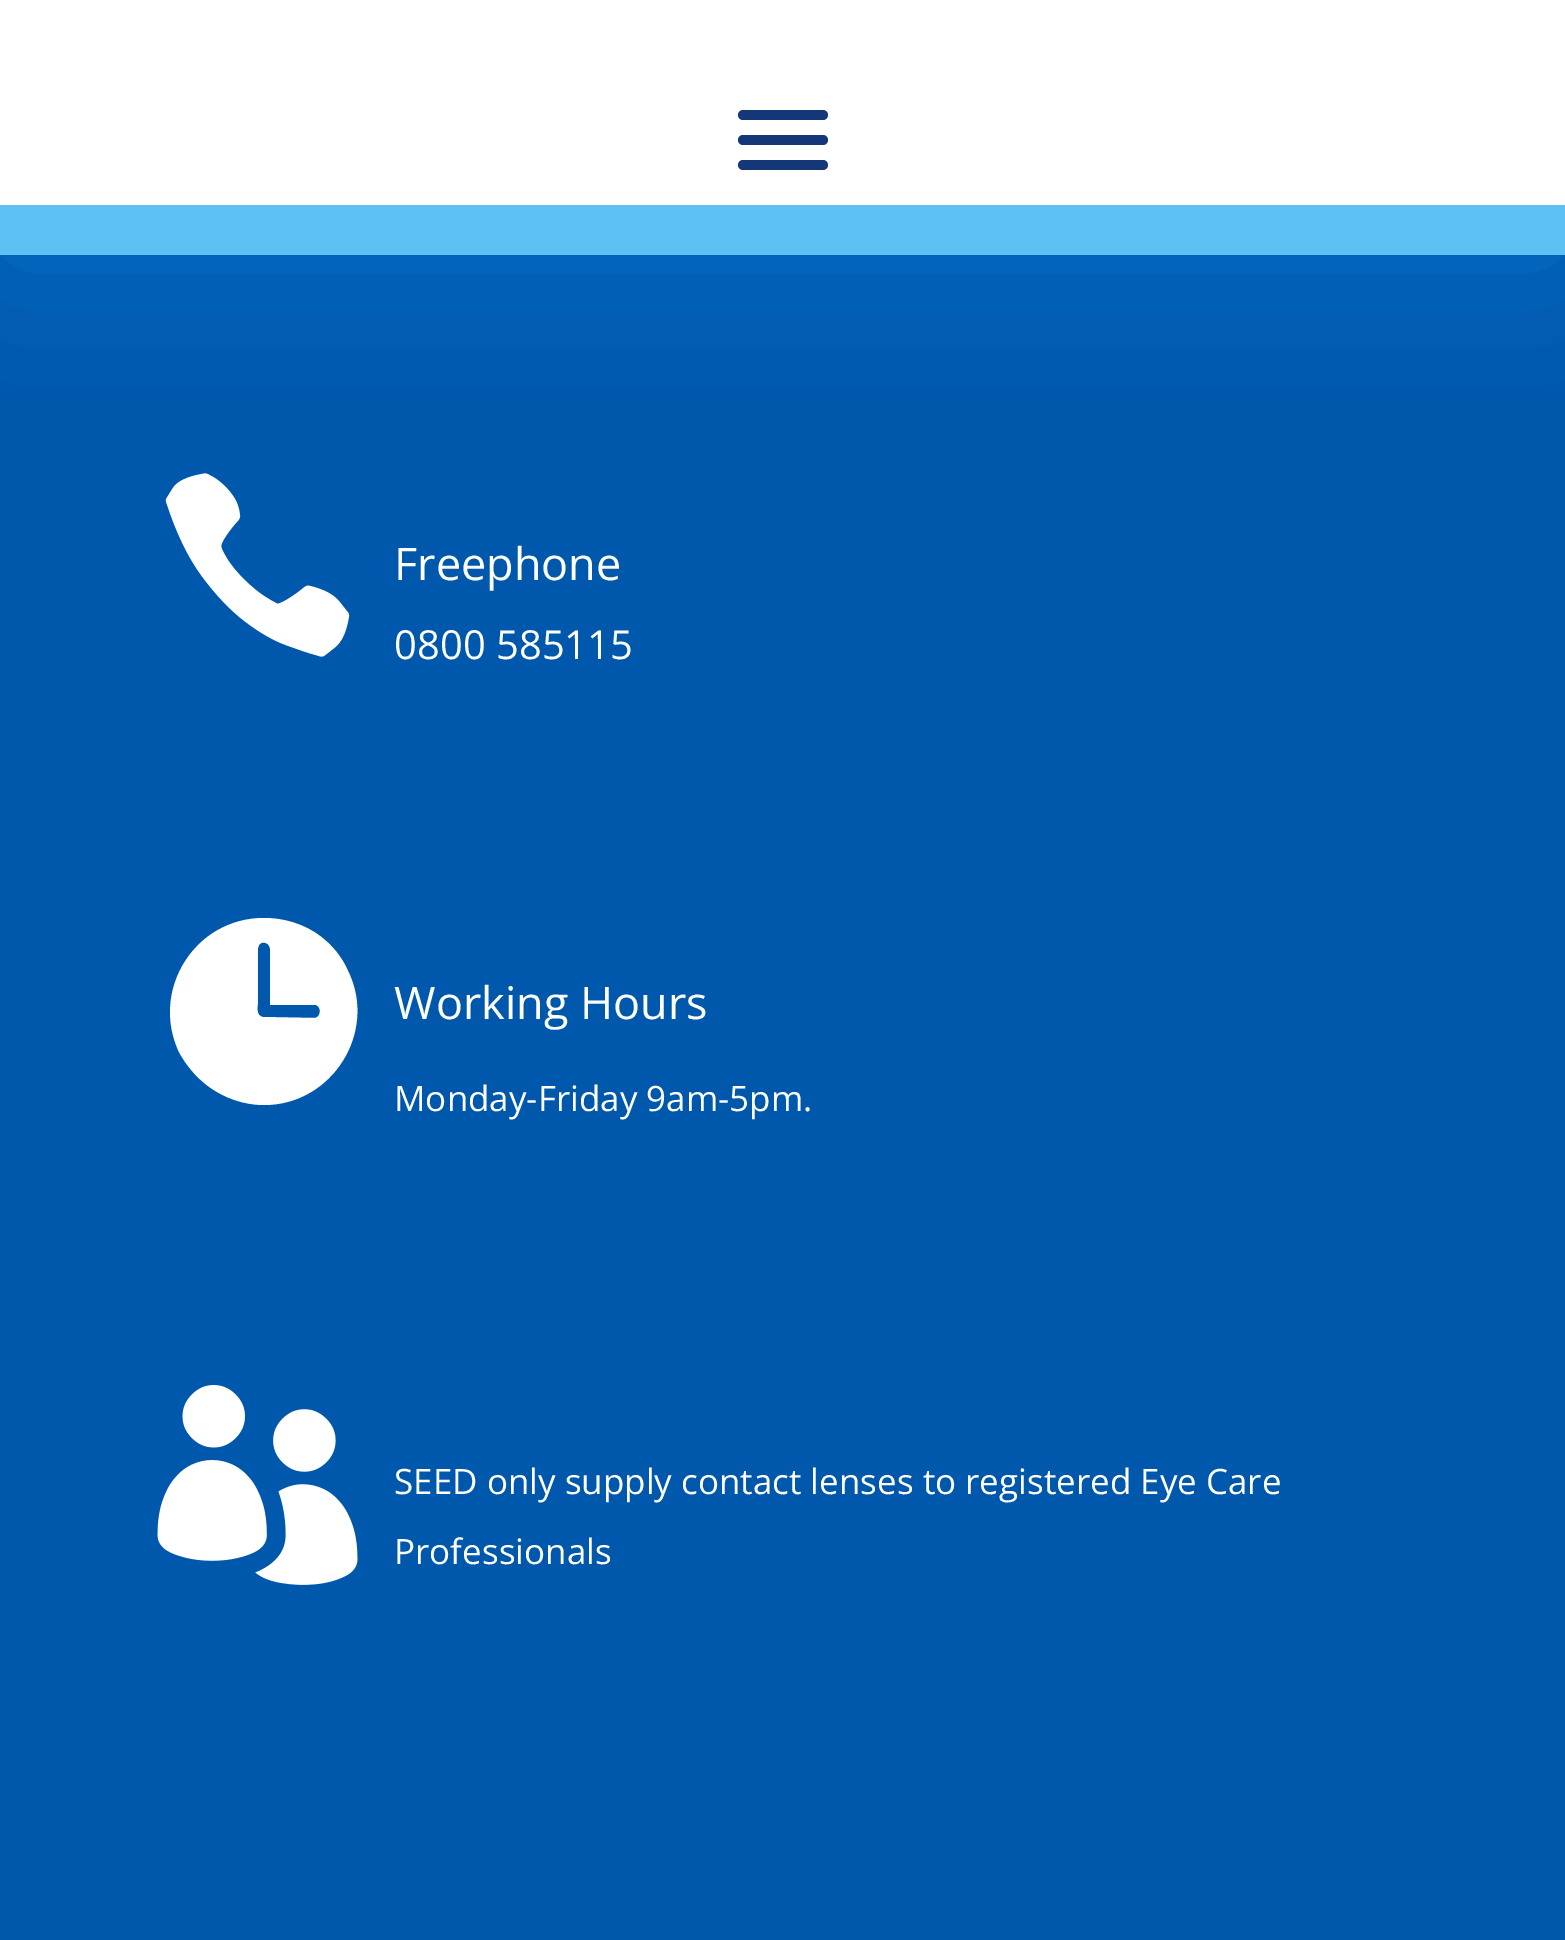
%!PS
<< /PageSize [1565 1940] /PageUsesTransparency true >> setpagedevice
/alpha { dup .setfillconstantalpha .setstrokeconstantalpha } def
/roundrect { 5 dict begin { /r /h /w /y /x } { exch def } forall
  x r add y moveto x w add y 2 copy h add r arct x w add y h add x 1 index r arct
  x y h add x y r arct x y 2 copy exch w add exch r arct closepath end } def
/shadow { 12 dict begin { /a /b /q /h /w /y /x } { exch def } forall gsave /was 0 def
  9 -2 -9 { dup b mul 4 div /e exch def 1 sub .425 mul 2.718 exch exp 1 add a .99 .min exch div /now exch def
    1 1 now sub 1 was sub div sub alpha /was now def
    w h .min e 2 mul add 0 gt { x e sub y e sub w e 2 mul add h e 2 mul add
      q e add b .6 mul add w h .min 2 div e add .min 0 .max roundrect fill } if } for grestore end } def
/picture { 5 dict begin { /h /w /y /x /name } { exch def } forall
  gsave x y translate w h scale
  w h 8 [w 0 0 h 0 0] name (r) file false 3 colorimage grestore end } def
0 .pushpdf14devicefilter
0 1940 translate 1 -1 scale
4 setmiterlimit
1 setgray
0 0 1565 1940 rectfill
0 0.345 0.678 setrgbcolor
0 255 1565 1685 rectfill
(img1.rgb) 165 473 185 184 picture
gsave
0 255 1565 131 rectclip
0.055 0.529 0.918 setrgbcolor
0 0 1565 255 0 75 0.5 shadow
grestore
0.373 0.753 0.953 setrgbcolor
0 205 1565 50 rectfill
0.078 0.216 0.467 setrgbcolor
738 110 90 10 5 roundrect fill
738 135 90 10 5 roundrect fill
738 160 90 10 5 roundrect fill
/OpenSans-Regular [45 0 0 -45 0 0] selectfont
1 setgray
394 580 moveto (Freephone) show
/OpenSans-Regular [40 0 0 -40 0 0] selectfont
394 659 moveto (0800 585115) show
newpath 264 918 moveto 195 918 150 990 179 1052 curveto 186 1065 196 1077 208 1086 curveto 224 1098 244 1105 264 1105 curveto 332 1105 378 1032 348 971 curveto 342 957 332 945 320 936 curveto 304 924 284 918 264 918 curveto closepath 314 1018 moveto 263 1017 lineto 255 1016 258 1005 258 1001 curveto 258 948 lineto 259 945 lineto 262 940 270 943 270 949 curveto 270 1005 lineto 316 1005 lineto 322 1007 321 1018 314 1018 curveto closepath fill
/OpenSans-Regular [45 0 0 -45 0 0] selectfont
394 1019 moveto (Working Hours) show
/OpenSans-Regular [35 0 0 -35 0 0] selectfont
394 1111 moveto (Monday-Friday 9am-5pm.) show
(img2.rgb) 157 1385 201 200 picture
394 1494 moveto (SEED only supply contact lenses to registered Eye Care) show
394 1564 moveto (Professionals) show
.poppdf14devicefilter showpage
